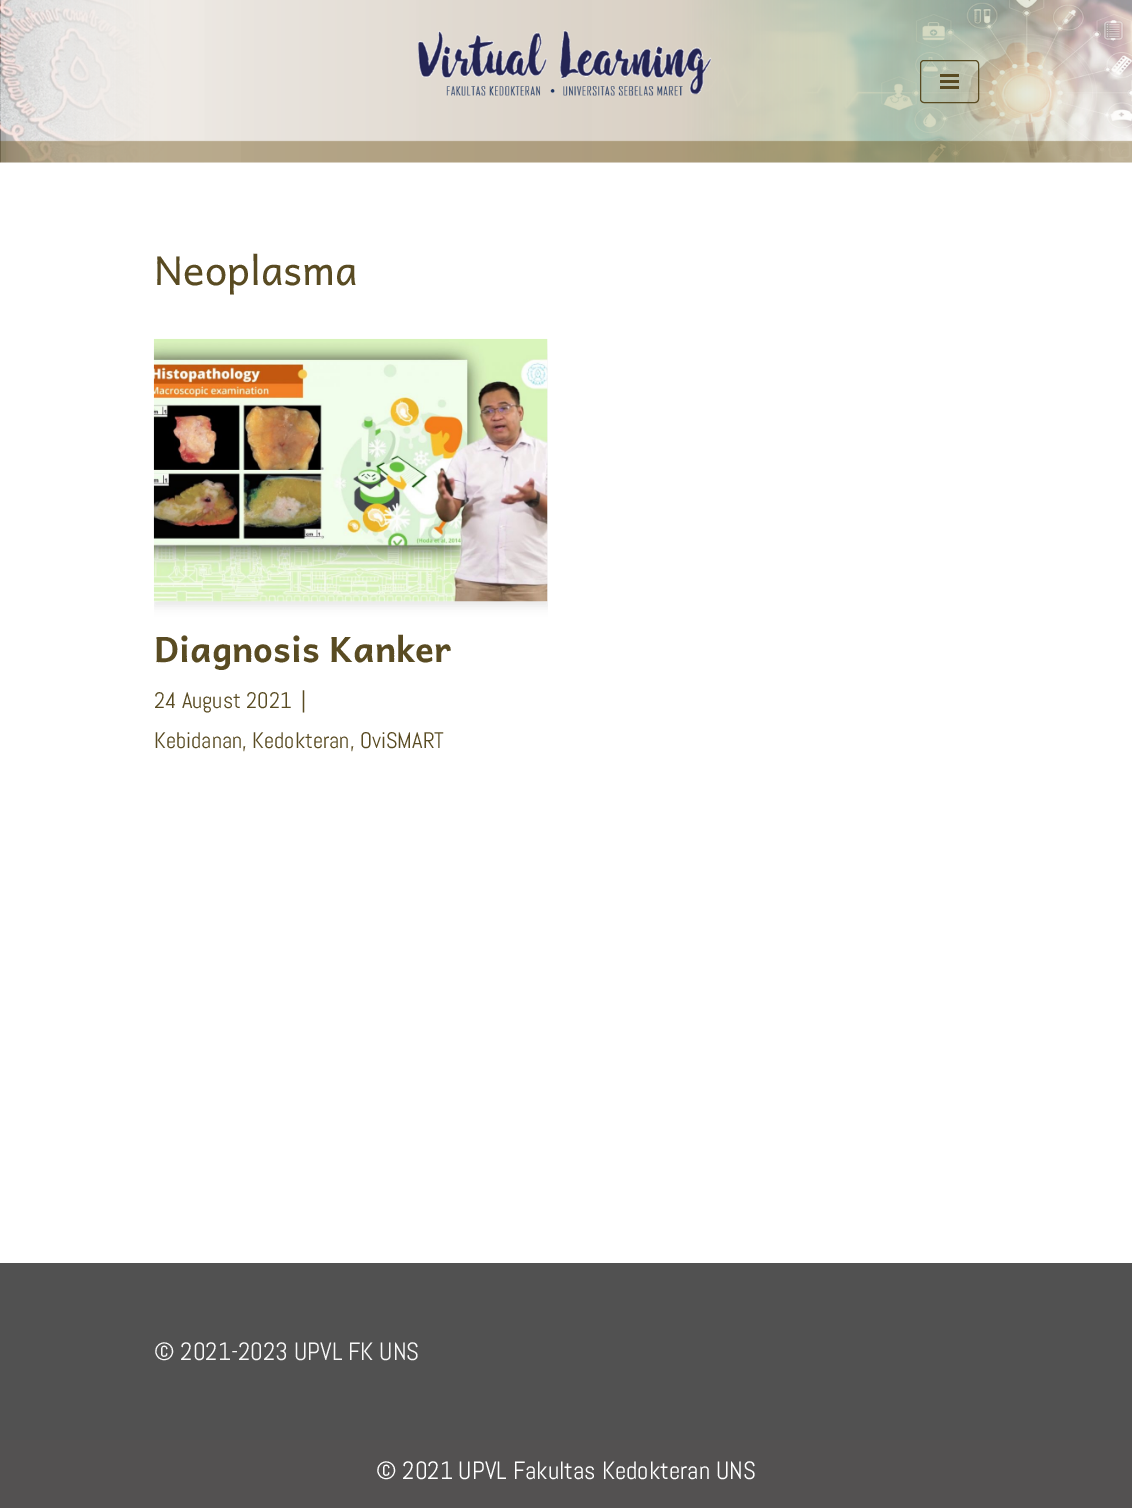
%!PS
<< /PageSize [1132 1508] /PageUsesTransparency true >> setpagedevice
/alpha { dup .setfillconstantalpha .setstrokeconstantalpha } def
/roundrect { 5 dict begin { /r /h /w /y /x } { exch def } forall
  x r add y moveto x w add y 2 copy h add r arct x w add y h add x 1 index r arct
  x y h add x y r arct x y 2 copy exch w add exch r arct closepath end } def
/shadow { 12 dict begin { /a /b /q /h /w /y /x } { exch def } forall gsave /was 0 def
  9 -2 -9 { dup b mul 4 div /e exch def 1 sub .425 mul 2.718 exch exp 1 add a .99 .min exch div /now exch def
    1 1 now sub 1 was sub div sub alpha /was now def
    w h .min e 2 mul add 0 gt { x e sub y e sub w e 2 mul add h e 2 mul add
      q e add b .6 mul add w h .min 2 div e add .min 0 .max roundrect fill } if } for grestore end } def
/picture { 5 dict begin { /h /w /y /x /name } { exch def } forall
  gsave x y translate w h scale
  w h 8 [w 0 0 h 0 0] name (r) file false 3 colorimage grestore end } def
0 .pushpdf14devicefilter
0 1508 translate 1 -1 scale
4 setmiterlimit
1 setgray
0 0 1132 1508 rectfill
(img1.rgb) 0 0 1132 163 picture
0.349 0.294 0.133 setrgbcolor
920.5 60.5 58 42 3.5 roundrect stroke
940 74 19 3 rectfill
940 80 19 3 rectfill
940 86 19 3 rectfill
/Andika-Regular [40 0 0 -40 0 0] selectfont
154 285 moveto (Neoplasma) show
gsave
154 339 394 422 rectclip
0 setgray
154 344 394 262 0 5 0.1 shadow
grestore
(img2.rgb) 153 338 395 264 picture
/Andika-Bold [35 0 0 -35 0 0] selectfont
154 662 moveto (Diagnosis Kanker) show
/Abel-Regular [22.5 0 0 -22.5 0 0] selectfont
154 708 moveto (24 August 2021) show
301 708 moveto (|) show
154 748 moveto (Kebidanan, Kedokteran, OviSMART) show
0.318 setgray
0 1263 1132 177 rectfill
/Abel-Regular [25 0 0 -25 0 0] selectfont
0.973 setgray
154 1360 moveto (© 2021-2023 UPVL FK UNS) show
0.325 0.318 0.318 setrgbcolor
0 1440 1132 68 rectfill
1 setgray
376 1479 moveto (© 2021 UPVL Fakultas Kedokteran UNS) show
.poppdf14devicefilter showpage
